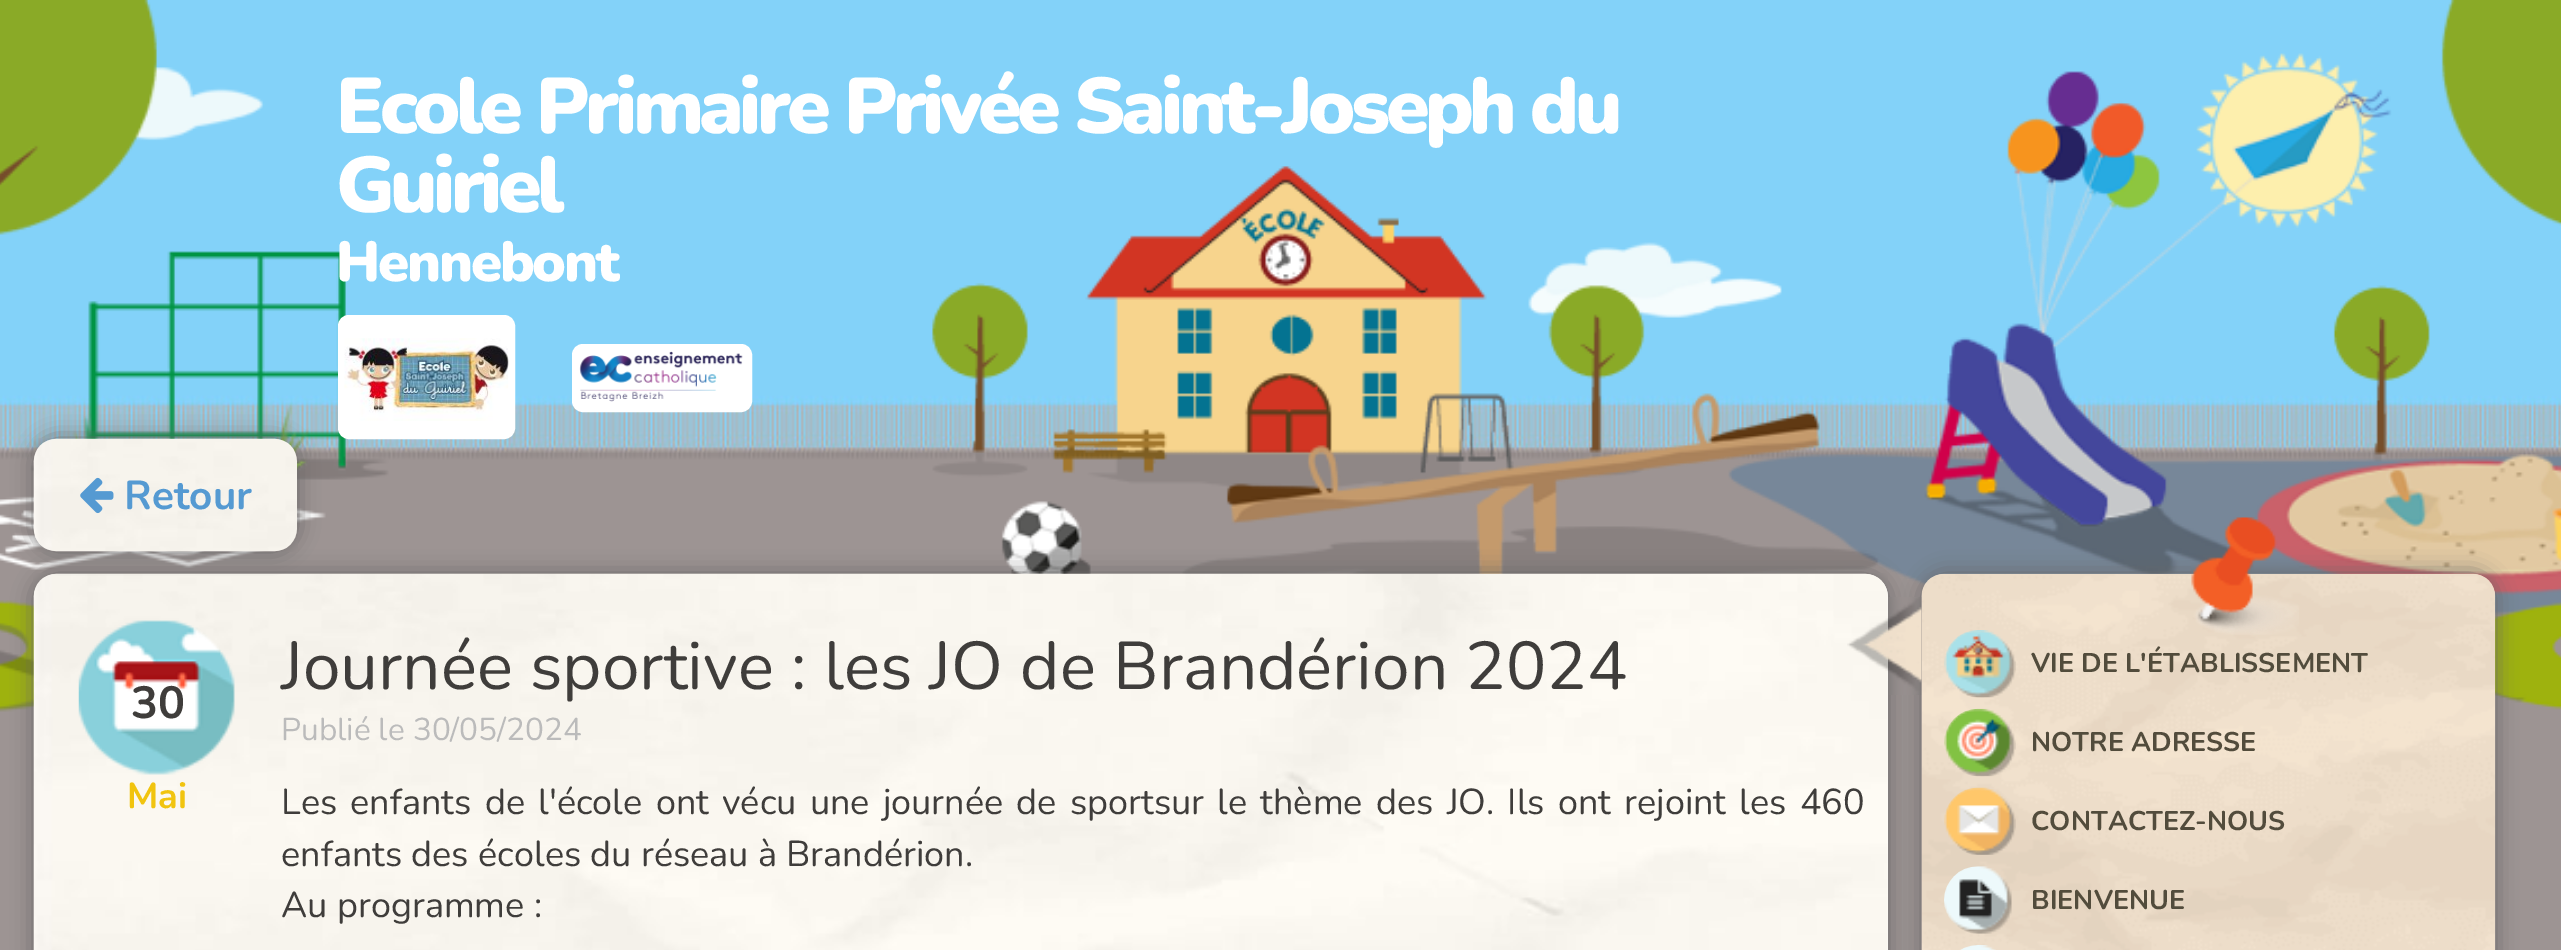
%!PS
<< /PageSize [2561 950] /PageUsesTransparency true >> setpagedevice
/alpha { dup .setfillconstantalpha .setstrokeconstantalpha } def
/roundrect { 5 dict begin { /r /h /w /y /x } { exch def } forall
  x r add y moveto x w add y 2 copy h add r arct x w add y h add x 1 index r arct
  x y h add x y r arct x y 2 copy exch w add exch r arct closepath end } def
/shadow { 12 dict begin { /a /b /q /h /w /y /x } { exch def } forall gsave /was 0 def
  9 -2 -9 { dup b mul 4 div /e exch def 1 sub .425 mul 2.718 exch exp 1 add a .99 .min exch div /now exch def
    1 1 now sub 1 was sub div sub alpha /was now def
    w h .min e 2 mul add 0 gt { x e sub y e sub w e 2 mul add h e 2 mul add
      q e add b .6 mul add w h .min 2 div e add .min 0 .max roundrect fill } if } for grestore end } def
/picture { 5 dict begin { /h /w /y /x /name } { exch def } forall
  gsave x y translate w h scale
  w h 8 [w 0 0 h 0 0] name (r) file false 3 colorimage grestore end } def
0 .pushpdf14devicefilter
0 950 translate 1 -1 scale
4 setmiterlimit
0.616 0.58 0.576 setrgbcolor
0 0 2561 950 rectfill
(img1.rgb) 0 0 2561 453 picture
(img2.rgb) 0 0 2561 712 picture
/Nunito-Black [78.75 0 0 -78.75 0 0] selectfont
1 setgray
336 133 moveto -4.5 0 (Ecole Primaire Privée Saint-Joseph du) ashow
336 212 moveto -4.5 0 (Guiriel) ashow
/Nunito-Black [56.25 0 0 -56.25 0 0] selectfont
336 281 moveto -2.25 0 (Hennebont) ashow
341.5 318.5 170 117 7.5 roundrect gsave fill grestore
7 setlinewidth
stroke
(img3.rgb) 344 338 165 83 picture
575.5 347.5 173 61 7.5 roundrect gsave fill grestore
stroke
(img4.rgb) 579 351 164 51 picture
0.4 setgray
34 574 1854 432 23 11 1 shadow
1 setgray
34 574 1854 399 23 roundrect fill
(img7.rgb) 33 573 1855 377 picture
0.4 setgray
34 439 263 112 23 11 1 shadow
(img5.rgb) 33 438 265 114 picture
(img6.rgb) 80 477 34 37 picture
/Nunito-Bold [40.5 0 0 -40.5 0 0] selectfont
0.333 0.604 0.824 setrgbcolor
124 509 moveto (Retour) show
(img8.rgb) 78 620 157 155 picture
/Nunito-Bold [45 0 0 -45 0 0] selectfont
0.247 0.239 0.231 setrgbcolor
131 718 moveto (30) show
/Nunito-Bold [36 0 0 -36 0 0] selectfont
0.945 0.769 0.059 setrgbcolor
127 808 moveto (Mai) show
/Nunito-Regular [67.5 0 0 -67.5 0 0] selectfont
0.247 0.239 0.231 setrgbcolor
281 689 moveto (Journée sportive : les JO de Brandérion 2024) show
/Nunito-Regular [31.5 0 0 -31.5 0 0] selectfont
0.733 setgray
281 740 moveto (Publié le 30/05/2024) show
/Nunito-Regular [36 0 0 -36 0 0] selectfont
0.247 0.239 0.231 setrgbcolor
281 814 moveto 4 0 32 (Les enfants de l'école ont vécu une journée de sportsur le thème des JO. Ils ont rejoint les 460) widthshow
281 866 moveto (enfants des écoles du réseau à Brandérion.) show
281 917 moveto (Au programme :) show
0.4 setgray
1922 574 573 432 23 11 1 shadow
(img11.rgb) 1921 573 575 377 picture
(img9.rgb) 2191 517 108 118 picture
(img10.rgb) 1847 597 75 98 picture
(img12.rgb) 1944 630 72 68 picture
/Nunito-Bold [27 0 0 -27 0 0] selectfont
0.322 0.298 0.235 setrgbcolor
2031 672 moveto (VIE DE L'ÉTABLISSEMENT) show
(img13.rgb) 1944 708 72 69 picture
2031 751 moveto (NOTRE ADRESSE) show
(img14.rgb) 1944 787 72 68 picture
2031 830 moveto (CONTACTEZ-NOUS) show
(img15.rgb) 1944 866 68 68 picture
2031 909 moveto (BIENVENUE) show
(img16.rgb) 1960 945 36 5 picture
.poppdf14devicefilter showpage
